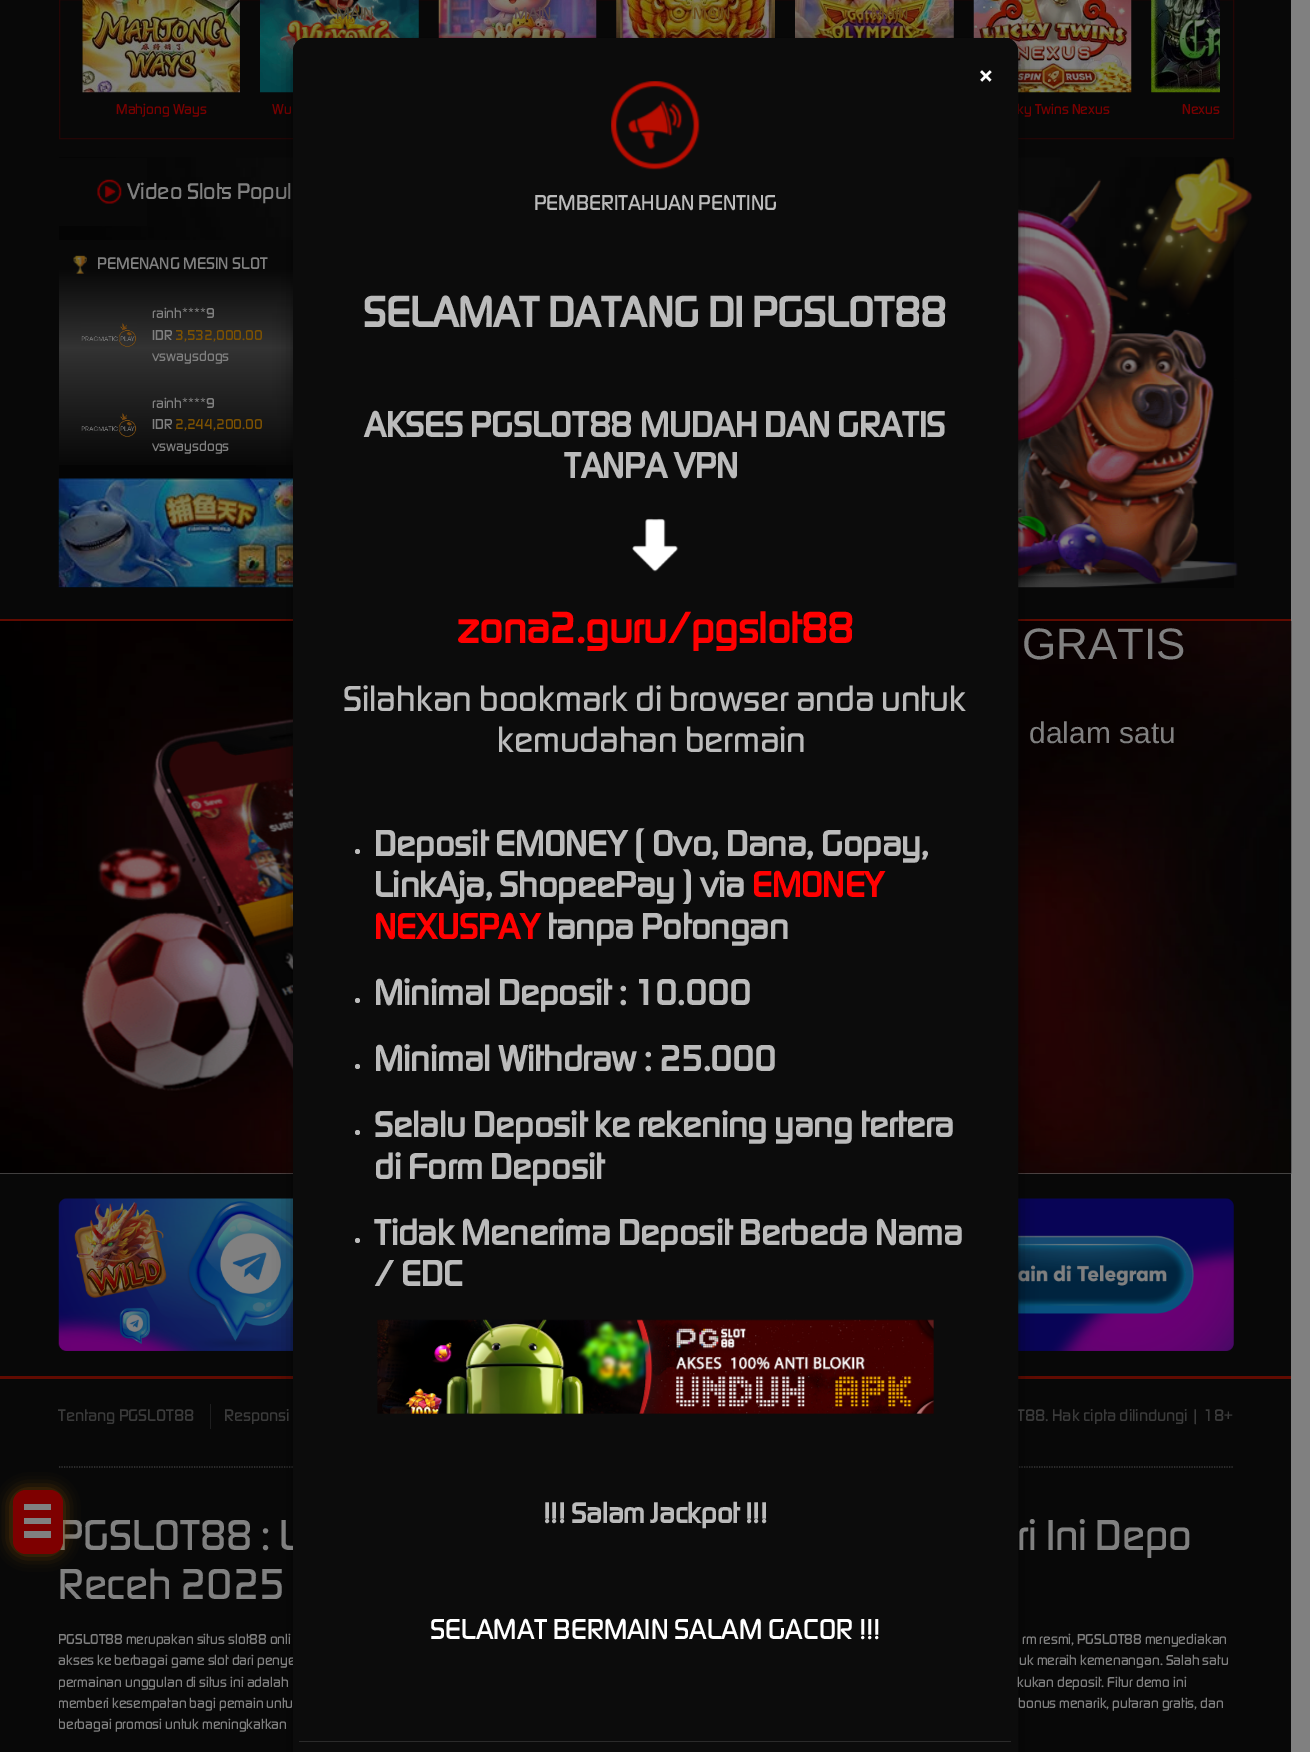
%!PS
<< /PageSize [1310 1752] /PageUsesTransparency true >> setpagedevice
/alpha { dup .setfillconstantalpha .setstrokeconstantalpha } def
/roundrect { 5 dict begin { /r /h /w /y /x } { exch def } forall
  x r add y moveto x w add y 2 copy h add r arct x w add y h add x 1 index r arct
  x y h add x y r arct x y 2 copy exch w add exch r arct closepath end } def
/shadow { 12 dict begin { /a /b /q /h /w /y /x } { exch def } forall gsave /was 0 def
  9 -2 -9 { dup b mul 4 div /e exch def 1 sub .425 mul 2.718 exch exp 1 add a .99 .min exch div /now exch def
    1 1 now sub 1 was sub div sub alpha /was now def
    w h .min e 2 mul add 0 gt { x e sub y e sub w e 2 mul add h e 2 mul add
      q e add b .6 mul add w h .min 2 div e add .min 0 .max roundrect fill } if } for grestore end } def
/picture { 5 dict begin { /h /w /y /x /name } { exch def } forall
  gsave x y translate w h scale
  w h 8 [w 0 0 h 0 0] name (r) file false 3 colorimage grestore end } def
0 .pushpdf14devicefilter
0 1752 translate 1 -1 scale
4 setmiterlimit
0.502 setgray
0 0 1310 1752 rectfill
0.031 setgray
0 0 1291 619 rectfill
0.38 0.043 0.004 setrgbcolor
0 619 1291 2 rectfill
0.145 0.02 0.02 setrgbcolor
59.5 -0.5 1174 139 rectstroke
(img1.rgb) 260 0 159 93 picture
/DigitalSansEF-Medium [17.5 0 0 -17.5 0 0] selectfont
0.322 0.286 0.22 setrgbcolor
336 19 moveto (MAIN) show
/DigitalSansEF-Medium [15 0 0 -15 0 0] selectfont
0.467 0 0 setrgbcolor
272 114 moveto (Wu) show
(img2.rgb) 438 0 159 38 picture
/DigitalSansEF-Medium [17.5 0 0 -17.5 0 0] selectfont
0.357 0.282 0.294 setrgbcolor
514 19 moveto (MAIN) show
(img3.rgb) 616 0 159 38 picture
0.424 0.298 0.106 setrgbcolor
693 19 moveto (MAIN) show
(img4.rgb) 795 0 159 38 picture
0.4 0.282 0.118 setrgbcolor
871 19 moveto (MAIN) show
(img5.rgb) 82 0 158 93 picture
/DigitalSansEF-Medium [15 0 0 -15 0 0] selectfont
0.467 0 0 setrgbcolor
116 114 moveto (Mahjong Ways) show
(img6.rgb) 973 0 159 93 picture
1017 114 moveto (ky Twins Nexus) show
(img7.rgb) 1151 0 69 93 picture
1182 114 moveto (Nexus) show
0.02 setgray
59 158 1175 430 rectfill
(img8.rgb) 59 157 1174 353 picture
0.031 setgray
59 158 88 68 rectfill
(img9.rgb) 97 179 25 25 picture
/DigitalSansEF-Medium [23.75 0 0 -23.75 0 0] selectfont
0.502 setgray
127 199 moveto (Video Slots Popul) show
gsave newpath 59 240 moveto 293 240 lineto 293 465 lineto 59 465 lineto closepath clip newpath
<< /ShadingType 2 /ColorSpace /DeviceRGB /Coords [204 240 204 465] /Extend [true true] /Function << /FunctionType 3 /Domain [0 1] /Functions [<< /FunctionType 2 /Domain [0 1] /C0 [0.031 0.031 0.031] /C1 [0.031 0.031 0.031] /N 1 >> << /FunctionType 2 /Domain [0 1] /C0 [0.031 0.031 0.031] /C1 [0.2 0.2 0.2] /N 1 >> << /FunctionType 2 /Domain [0 1] /C0 [0.2 0.2 0.2] /C1 [0.031 0.031 0.031] /N 1 >>] /Bounds [0.12 0.48] /Encode [0 1 0 1 0 1] >> >> shfill grestore
(img10.rgb) 73 255 14 19 picture
/DigitalSansEF-Medium [17.5 0 0 -17.5 0 0] selectfont
97 269 moveto (PEMENANG MESIN SLOT) show
(img11.rgb) 81 323 56 24 picture
/DigitalSansEF-Medium [15 0 0 -15 0 0] selectfont
152 318 moveto (rainh****9) show
152 340 moveto (IDR) show
0.486 0.318 0.004 setrgbcolor
175 340 moveto (3,532,000.00) show
0.502 setgray
152 361 moveto (vswaysdogs) show
(img12.rgb) 81 413 56 24 picture
152 408 moveto (rainh****9) show
152 429 moveto (IDR) show
0.486 0.318 0.004 setrgbcolor
175 429 moveto (2,244,200.00) show
0.502 setgray
152 451 moveto (vswaysdogs) show
(img13.rgb) 58 478 235 110 picture
(img14.rgb) 1018 157 235 431 picture
(img18.rgb) 0 621 1292 553 picture
(img19.rgb) 81 718 212 373 picture
0.031 setgray
0 1174 1291 202 rectfill
(img20.rgb) 58 1198 1176 153 picture
0 1379 1291 373 rectfill
0.38 0.043 0.004 setrgbcolor
0 1376 1291 3 rectfill
0.224 setgray
1.2 setlinewidth
[1.25 1.25] 0 setdash
newpath 59 1467 moveto 1234 1467 lineto stroke
0 setgray
293 44 725 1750 13 9.5 0.5 shadow
/DigitalSansEF-Medium [17.5 0 0 -17.5 0 0] selectfont
0.227 setgray
1017 1421 moveto (T88. Hak cipta dilindungi | 18+) show
/DigitalSansEF-Medium [45 0 0 -45 0 0] selectfont
0.502 setgray
58 1550 moveto (PGSLOT88 : L) show
/DigitalSansEF-Medium [15 0 0 -15 0 0] selectfont
58 1665 moveto (akses ke berbagai game slot dari penye) show
0.047 setgray
newpath 306 38 moveto 1005 38 lineto 1012 38 1018 44 1018 51 curveto 1018 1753 lineto 293 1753 lineto 293 51 lineto 293 44 299 38 306 38 curveto closepath fill
6 setlinewidth
[] 0 setdash
296 41 719 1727 10 roundrect stroke
/DigitalSansEF-Bold [26 0 0 -26 0 0] selectfont
1 setgray
979 85 moveto (×) show
(img15.rgb) 611 81 89 89 picture
/DigitalSansEF-Medium [22.5 0 0 -22.5 0 0] selectfont
0.733 setgray
534 210 moveto (PEMBERITAHUAN PENTING) show
/DigitalSansEF-Bold [45 0 0 -45 0 0] selectfont
363 327 moveto (SELAMAT DATANG DI PGSLOT88) show
/DigitalSansEF-Bold [37.5 0 0 -37.5 0 0] selectfont
364 437 moveto (AKSES PGSLOT88 MUDAH DAN GRATIS) show
564 478 moveto (TANPA VPN) show
(img16.rgb) 632 518 47 54 picture
/DigitalSansEF-Bold [45 0 0 -45 0 0] selectfont
1 0 0 setrgbcolor
457 643 moveto (zona2.guru/pgslot88) show
/DigitalSansEF-Medium [37.5 0 0 -37.5 0 0] selectfont
0.733 setgray
343 711 moveto (Silahkan bookmark di browser anda untuk) show
497 752 moveto (kemudahan bermain) show
newpath 357.5 851.5 2.5 0 360 arc closepath fill
/DigitalSansEF-Bold [37.5 0 0 -37.5 0 0] selectfont
374 856 moveto (Deposit EMONEY \( Ovo, Dana, Gopay,) show
374 897 moveto (LinkAja, ShopeePay \) via) show
1 0 0 setrgbcolor
752 897 moveto (EMONEY) show
374 939 moveto (NEXUSPAY) show
0.733 setgray
547 939 moveto (tanpa Potongan) show
newpath 357.5 1000.5 2.5 0 360 arc closepath fill
374 1005 moveto (Minimal Deposit : 10.000) show
newpath 357.5 1066.5 2.5 0 360 arc closepath fill
374 1071 moveto (Minimal Withdraw : 25.000) show
newpath 357.5 1132.5 2.5 0 360 arc closepath fill
374 1137 moveto (Selalu Deposit ke rekening yang tertera) show
374 1179 moveto (di Form Deposit) show
newpath 357.5 1240.5 2.5 0 360 arc closepath fill
374 1245 moveto (Tidak Menerima Deposit Berbeda Nama) show
374 1286 moveto (/ EDC) show
(img17.rgb) 377 1319 557 95 picture
/DigitalSansEF-Bold [30 0 0 -30 0 0] selectfont
543 1523 moveto (!!! Salam Jackpot !!!) show
/DigitalSansEF-Medium [30 0 0 -30 0 0] selectfont
1 setgray
430 1639 moveto (SELAMAT BERMAIN SALAM GACOR !!!) show
0.169 setgray
299 1741 712 1 rectfill
/LiberationSans-Regular [44 0 0 -44 0 0] selectfont
0.502 setgray
1022 659 moveto (GRATIS) show
/LiberationSans-Regular [30 0 0 -30 0 0] selectfont
1029 743 moveto (dalam satu) show
0.502 0.286 0 setrgbcolor
11 1489 53 66 14 7.5 0.7 shadow
0.494 0 0 setrgbcolor
13 1490 50 64 13 roundrect fill
0.502 setgray
24 1504 27 6 rectfill
24 1518 27 6 rectfill
24 1531 27 7 rectfill
/DigitalSansEF-Medium [17.5 0 0 -17.5 0 0] selectfont
0.227 setgray
58 1421 moveto (Tentang PGSLOT88) show
0.118 0.118 0.122 setrgbcolor
210 1404 1 25 rectfill
0.227 setgray
224 1421 moveto (Responsi) show
/DigitalSansEF-Medium [45 0 0 -45 0 0] selectfont
0.502 setgray
1017 1550 moveto (ri Ini Depo) show
58 1599 moveto (Receh 2025) show
gsave
59 1486 1175 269 rectclip
/DigitalSansEF-Medium [15 0 0 -15 0 0] selectfont
58 1644 moveto (PGSLOT88 merupakan situs) show
grestore
/DigitalSansEF-Medium [15 0 0 -15 0 0] selectfont
228 1644 moveto (slot88 onli) show
1022 1644 moveto (rm resmi, PGSLOT88 menyediakan) show
1019 1665 moveto (uk meraih kemenangan. Salah satu) show
gsave
59 1486 1175 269 rectclip
58 1687 moveto (permainan unggulan di situs ini adalah) show
grestore
1017 1687 moveto (kukan deposit. Fitur demo ini) show
gsave
59 1486 1175 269 rectclip
58 1708 moveto (memberi kesempatan bagi pemain untu) show
grestore
1018 1708 moveto (bonus menarik, putaran gratis, dan) show
gsave
59 1486 1175 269 rectclip
58 1729 moveto (berbagai promosi untuk meningkatkan) show
grestore
.poppdf14devicefilter showpage
